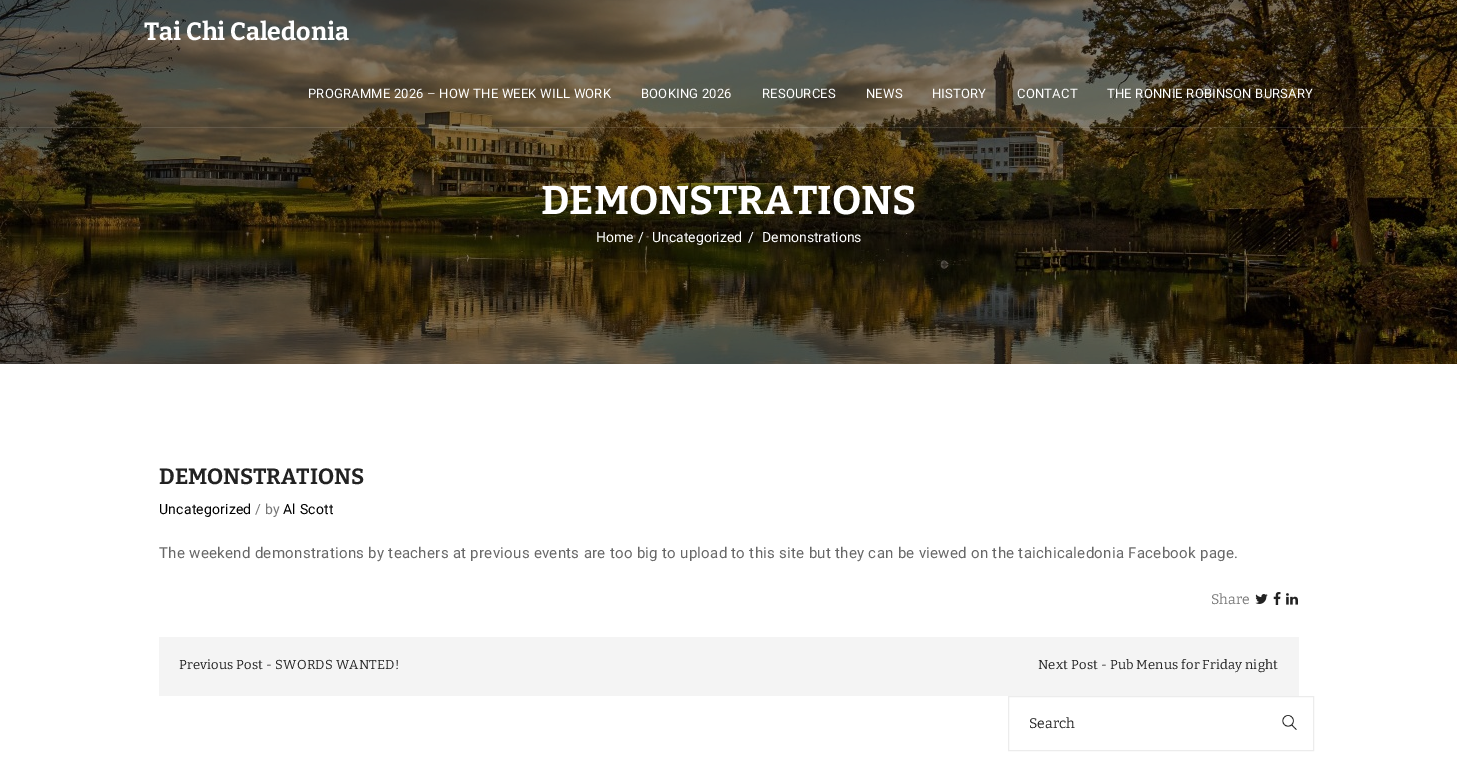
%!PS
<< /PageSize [1457 775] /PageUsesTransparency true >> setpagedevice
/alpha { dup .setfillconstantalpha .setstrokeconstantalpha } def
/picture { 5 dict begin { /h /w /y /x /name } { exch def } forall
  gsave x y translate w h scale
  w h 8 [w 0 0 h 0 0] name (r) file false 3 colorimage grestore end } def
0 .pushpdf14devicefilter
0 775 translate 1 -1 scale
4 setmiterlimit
1 setgray
0 0 1457 775 rectfill
(img1.rgb) 0 0 1457 364 picture
0.12 alpha
0.925 setgray
0 127 1457 1 rectfill
/Bitter-Bold [25 0 0 -25 0 0] selectfont
1 alpha
1 setgray
144 40 moveto (Tai Chi Caledonia) show
/Roboto-Regular [13 0 0 -13 0 0] selectfont
308 98 moveto 0.2 0 (PROGRAMME 2026 – HOW THE WEEK WILL WORK) ashow
641 98 moveto 0.2 0 (BOOKING 2026) ashow
762 98 moveto 0.2 0 (RESOURCES) ashow
866 98 moveto 0.2 0 (NEWS) ashow
932 98 moveto 0.2 0 (HISTORY) ashow
1017 98 moveto 0.2 0 (CONTACT) ashow
1107 98 moveto 0.2 0 (THE RONNIE ROBINSON BURSARY) ashow
/Bitter-Bold [40 0 0 -40 0 0] selectfont
541 214 moveto (DEMONSTRATIONS) show
/Roboto-Regular [14 0 0 -14 0 0] selectfont
596 242 moveto (Home) show
638 242 moveto (/) show
652 242 moveto (Uncategorized) show
748 242 moveto (/) show
762 242 moveto (Demonstrations) show
/Bitter-Bold [22 0 0 -22 0 0] selectfont
0.133 setgray
159 484 moveto -0.1 0 (DEMONSTRATIONS) ashow
/Roboto-Regular [14 0 0 -14 0 0] selectfont
0 setgray
159 514 moveto 0.2 0 (Uncategorized) ashow
0.467 setgray
255 514 moveto 0.2 0 (/ by) ashow
0 setgray
283 514 moveto 0.2 0 (Al Scott) ashow
/Roboto-Regular [15 0 0 -15 0 0] selectfont
0.408 setgray
159 558 moveto 0.3 0 (The weekend demonstrations by teachers at previous events are too big to upload to this site but they can be viewed on the taichicaledonia Facebook page.) ashow
/Bitter-Regular [14 0 0 -14 0 0] selectfont
0.467 setgray
1211 604 moveto (Share) show
(img2.rgb) 1255 594 13 10 picture
(img3.rgb) 1273 592 8 13 picture
(img4.rgb) 1286 593 12 12 picture
0.957 setgray
159 637 1140 59 rectfill
/Bitter-Regular [13 0 0 -13 0 0] selectfont
0.133 setgray
179 669 moveto 0.2 0 (Previous Post - SWORDS WANTED!) ashow
1038 669 moveto 0.2 0 (Next Post - Pub Menus for Friday night) ashow
0.925 setgray
1008.5 696.5 305 54 rectstroke
/Bitter-Regular [14 0 0 -14 0 0] selectfont
0.133 setgray
1029 728 moveto (Search) show
(img5.rgb) 1282 715 15 15 picture
.poppdf14devicefilter showpage
